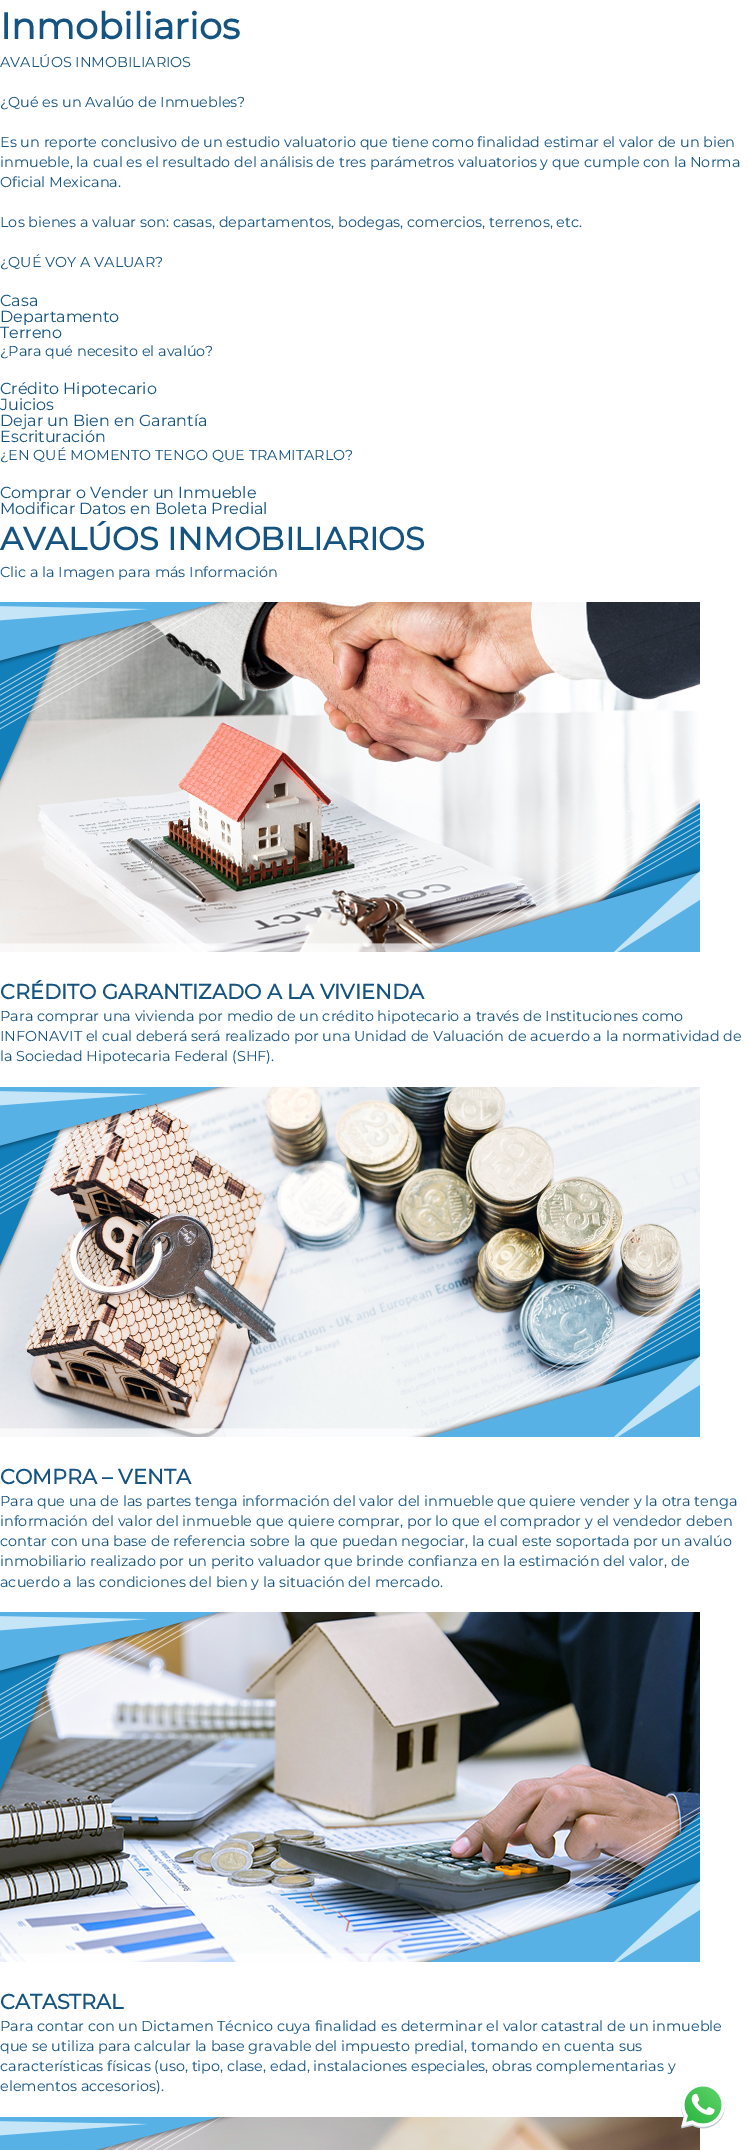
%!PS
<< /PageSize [748 2150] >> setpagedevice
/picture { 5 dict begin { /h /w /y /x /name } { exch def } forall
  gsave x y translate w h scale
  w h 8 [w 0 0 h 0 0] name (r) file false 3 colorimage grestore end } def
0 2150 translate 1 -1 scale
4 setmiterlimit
1 setgray
0 0 748 2150 rectfill
/Montserrat-Bold [36.75 0 0 -36.75 0 0] selectfont
0.082 0.325 0.502 setrgbcolor
0 39 moveto (Inmobiliarios) show
/Montserrat-Thin [14.4 0 0 -14.4 0 0] selectfont
0 67 moveto (AVALÚOS INMOBILIARIOS) show
0 107 moveto (¿Qué es un Avalúo de Inmuebles?) show
0 147 moveto (Es un reporte conclusivo de un estudio valuatorio que tiene como finalidad estimar el valor de un bien) show
0 167 moveto (inmueble, la cual es el resultado del análisis de tres parámetros valuatorios y que cumple con la Norma) show
0 187 moveto (Oficial Mexicana.) show
0 227 moveto (Los bienes a valuar son: casas, departamentos, bodegas, comercios, terrenos, etc.) show
0 267 moveto (¿QUÉ VOY A VALUAR?) show
/Montserrat-Thin [16 0 0 -16 0 0] selectfont
0 306 moveto (Casa) show
0 322 moveto (Departamento) show
0 338 moveto (Terreno) show
/Montserrat-Thin [14.4 0 0 -14.4 0 0] selectfont
0 356 moveto (¿Para qué necesito el avalúo?) show
/Montserrat-Thin [16 0 0 -16 0 0] selectfont
0 394 moveto (Crédito Hipotecario) show
0 410 moveto (Juicios) show
0 426 moveto (Dejar un Bien en Garantía) show
0 442 moveto (Escrituración) show
/Montserrat-Thin [14.4 0 0 -14.4 0 0] selectfont
0 460 moveto (¿EN QUÉ MOMENTO TENGO QUE TRAMITARLO?) show
/Montserrat-Thin [16 0 0 -16 0 0] selectfont
0 498 moveto (Comprar o Vender un Inmueble) show
0 514 moveto (Modificar Datos en Boleta Predial) show
/Montserrat-Bold [32 0 0 -32 0 0] selectfont
0 550 moveto (AVALÚOS INMOBILIARIOS) show
/Montserrat-Thin [14.4 0 0 -14.4 0 0] selectfont
0 577 moveto (Clic a la Imagen para más Información) show
(img1.rgb) 0 602 700 350 picture
/Montserrat-Bold [20.8 0 0 -20.8 0 0] selectfont
0 999 moveto (CRÉDITO GARANTIZADO A LA VIVIENDA) show
/Montserrat-Thin [14.4 0 0 -14.4 0 0] selectfont
0 1021 moveto (Para comprar una vivienda por medio de un crédito hipotecario a través de Instituciones como) show
0 1041 moveto (INFONAVIT el cual deberá será realizado por una Unidad de Valuación de acuerdo a la normatividad de) show
0 1061 moveto (la Sociedad Hipotecaria Federal \(SHF\).) show
(img2.rgb) 0 1087 700 350 picture
/Montserrat-Bold [20.8 0 0 -20.8 0 0] selectfont
0 1484 moveto (COMPRA – VENTA) show
/Montserrat-Thin [14.4 0 0 -14.4 0 0] selectfont
0 1506 moveto (Para que una de las partes tenga información del valor del inmueble que quiere vender y la otra tenga) show
0 1526 moveto (información del valor del inmueble que quiere comprar, por lo que el comprador y el vendedor deben) show
0 1546 moveto (contar con una base de referencia sobre la que puedan negociar, la cual este soportada por un avalúo) show
0 1566 moveto (inmobiliario realizado por un perito valuador que brinde confianza en la estimación del valor, de) show
0 1587 moveto (acuerdo a las condiciones del bien y la situación del mercado.) show
(img3.rgb) 0 1612 700 350 picture
/Montserrat-Bold [20.8 0 0 -20.8 0 0] selectfont
0 2009 moveto (CATASTRAL) show
/Montserrat-Thin [14.4 0 0 -14.4 0 0] selectfont
0 2031 moveto (Para contar con un Dictamen Técnico cuya finalidad es determinar el valor catastral de un inmueble) show
0 2051 moveto (que se utiliza para calcular la base gravable del impuesto predial, tomando en cuenta sus) show
0 2071 moveto (características físicas \(uso, tipo, clase, edad, instalaciones especiales, obras complementarias y) show
0 2091 moveto (elementos accesorios\).) show
(img4.rgb) 0 2117 700 33 picture
(img5.rgb) 681 2086 44 43 picture
showpage
